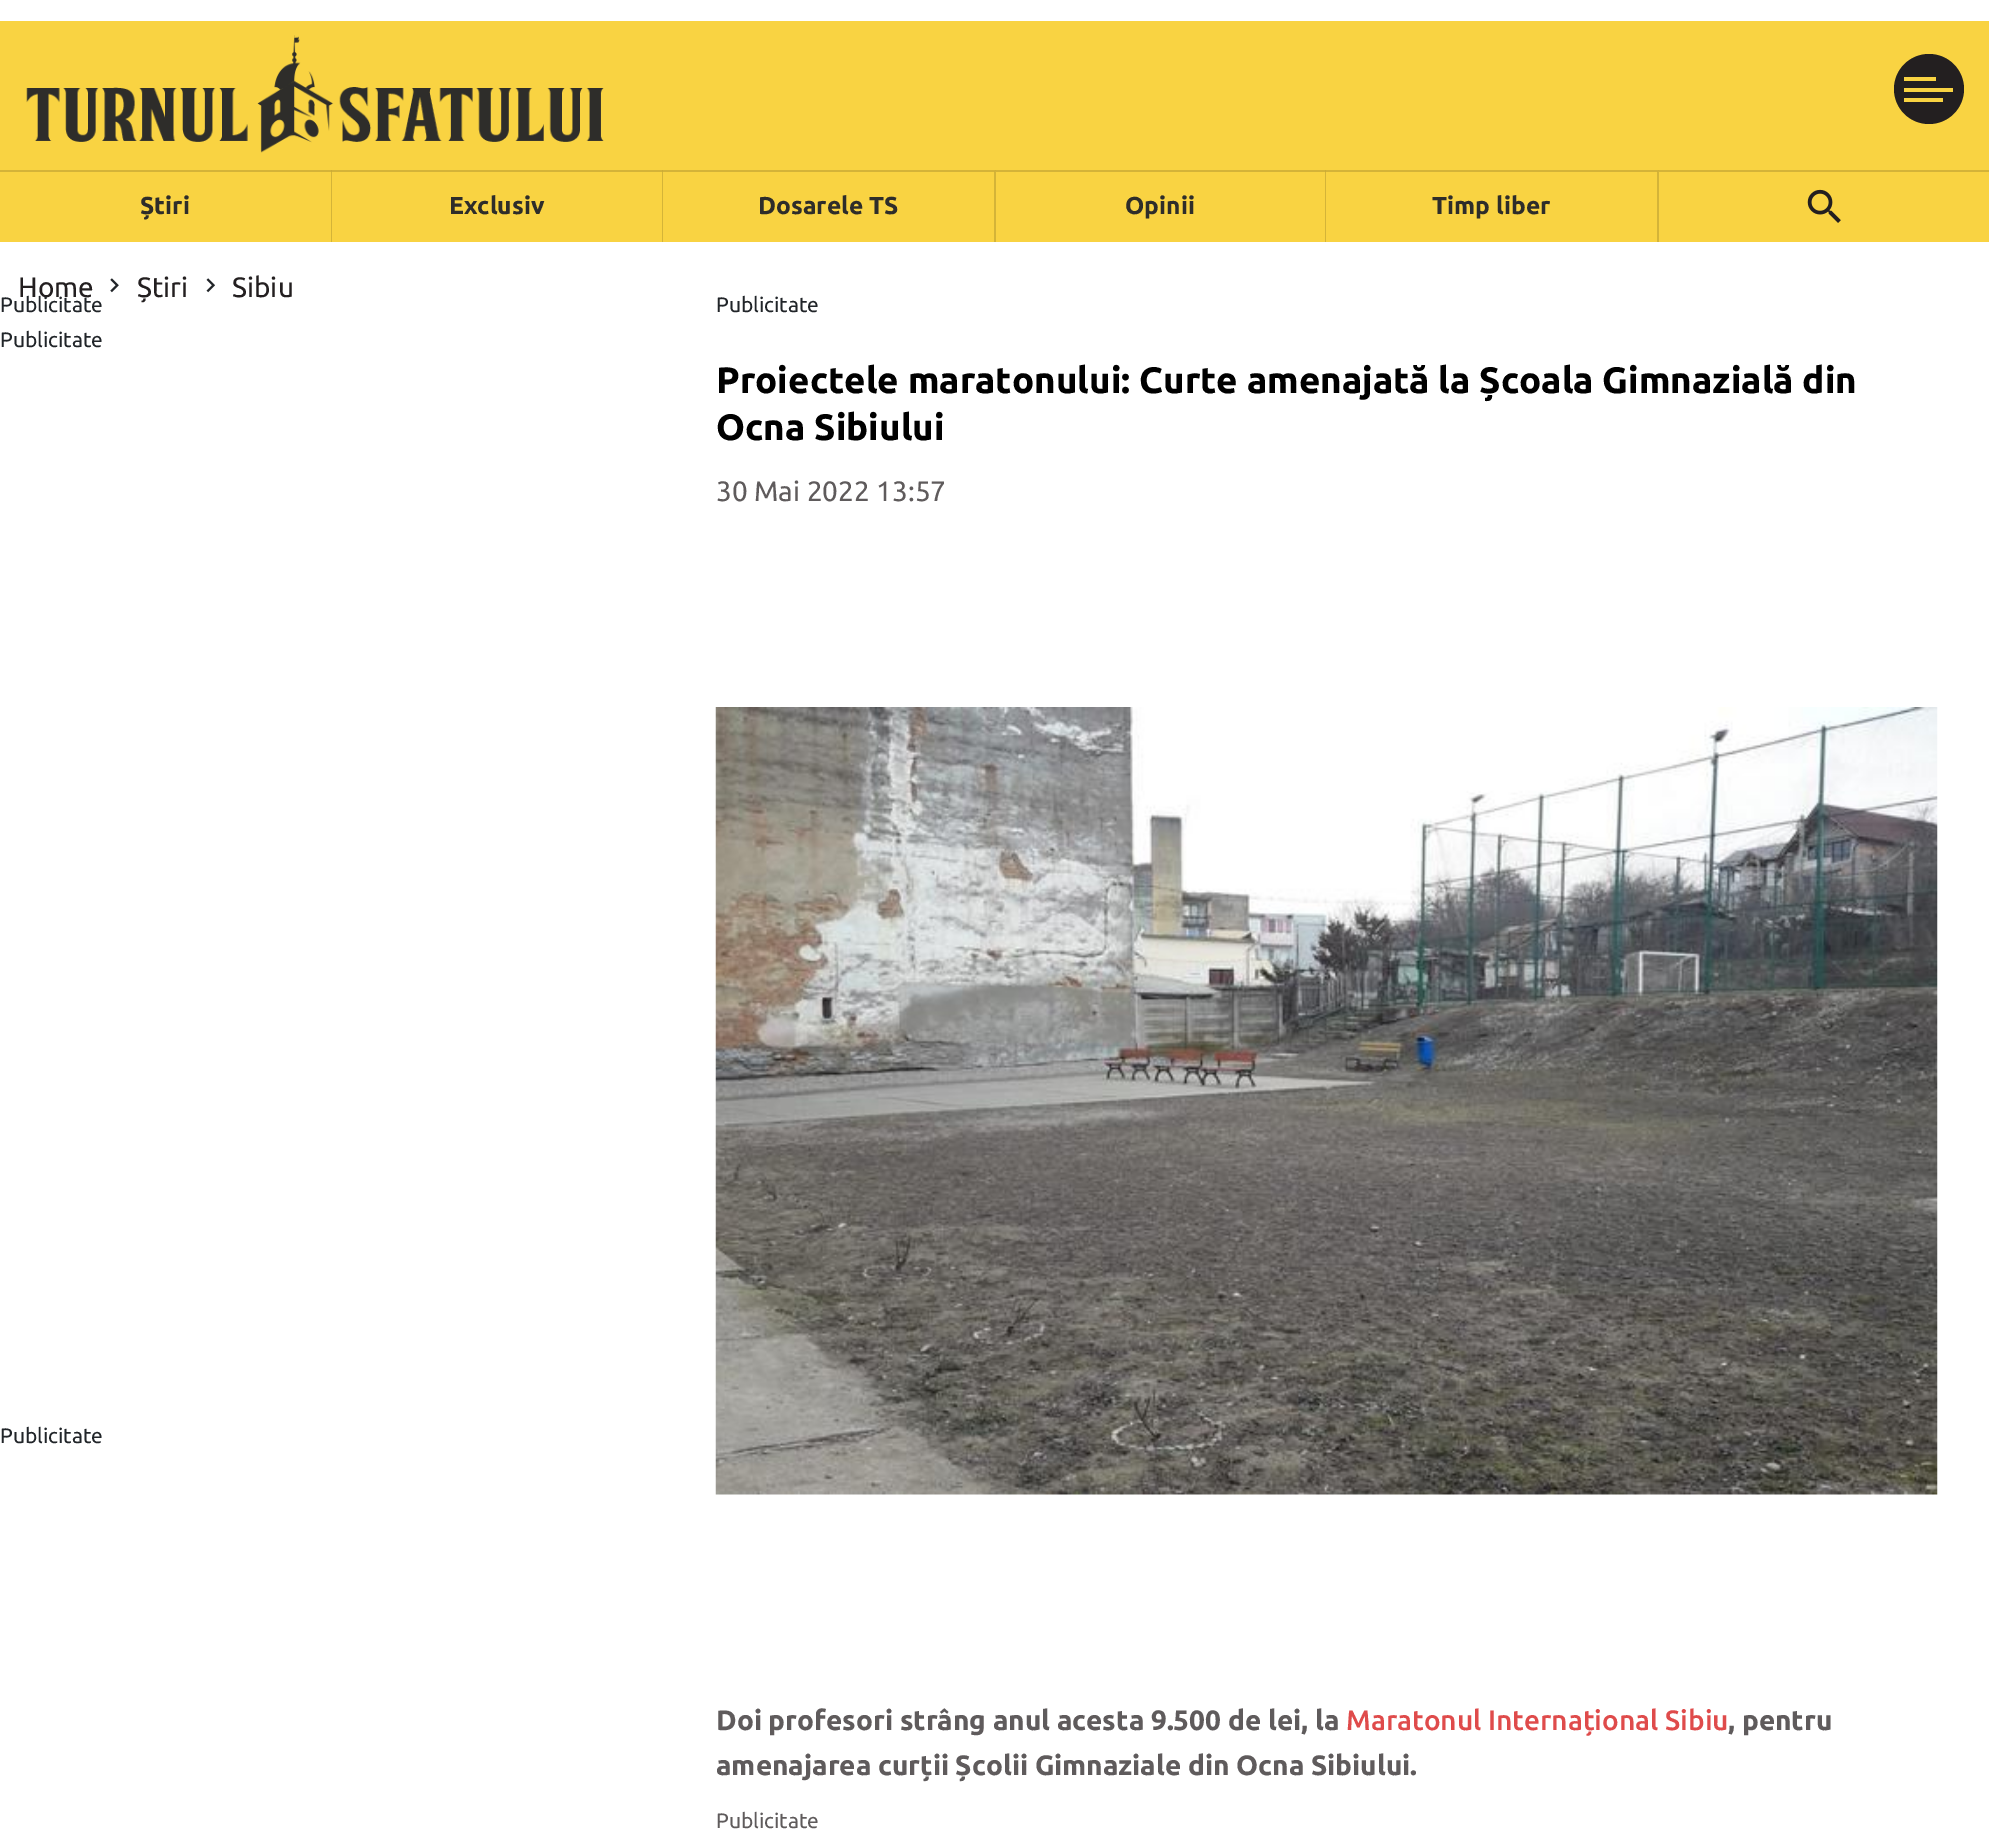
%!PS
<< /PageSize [1989 1831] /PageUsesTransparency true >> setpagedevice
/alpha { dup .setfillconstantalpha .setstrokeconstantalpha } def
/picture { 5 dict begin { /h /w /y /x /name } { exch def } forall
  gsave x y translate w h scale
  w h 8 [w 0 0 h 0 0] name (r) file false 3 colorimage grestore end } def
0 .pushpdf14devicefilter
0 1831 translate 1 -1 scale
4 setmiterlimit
1 setgray
0 0 1989 1831 rectfill
0.976 0.827 0.259 setrgbcolor
0 21 1989 221 rectfill
(img1.rgb) 26 35 578 118 picture
0.137 0.122 0.125 setrgbcolor
newpath 1929 89 35 0 360 arc closepath fill
0.976 0.827 0.259 setrgbcolor
1904 88 49 4 rectfill
1904 77 32 4 rectfill
1904 98 39 4 rectfill
0.831 0.702 0.22 setrgbcolor
newpath 0 170 moveto 332 170 lineto 331 172 lineto 0 172 lineto closepath fill
0.15 alpha
0 setgray
newpath 332 170 moveto 332 242 lineto 331 242 lineto 331 172 lineto closepath fill
/Ubuntu-Bold [24.5 0 0 -24.5 0 0] selectfont
1 alpha
0.18 0.176 0.165 setrgbcolor
140 214 moveto (Știri) show
0.831 0.702 0.22 setrgbcolor
newpath 332 170 moveto 663 170 lineto 662 172 lineto 332 172 lineto closepath fill
0.15 alpha
0 setgray
newpath 663 170 moveto 663 242 lineto 662 242 lineto 662 172 lineto closepath fill
1 alpha
0.18 0.176 0.165 setrgbcolor
449 214 moveto (Exclusiv) show
0.831 0.702 0.22 setrgbcolor
newpath 663 170 moveto 996 170 lineto 994 172 lineto 663 172 lineto closepath fill
0.15 alpha
0 setgray
newpath 996 170 moveto 996 242 lineto 994 242 lineto 994 172 lineto closepath fill
1 alpha
0.18 0.176 0.165 setrgbcolor
758 214 moveto (Dosarele TS) show
0.831 0.702 0.22 setrgbcolor
newpath 996 170 moveto 1326 170 lineto 1325 172 lineto 996 172 lineto closepath fill
0.15 alpha
0 setgray
newpath 1326 170 moveto 1326 242 lineto 1325 242 lineto 1325 172 lineto closepath fill
1 alpha
0.18 0.176 0.165 setrgbcolor
1125 214 moveto (Opinii) show
0.831 0.702 0.22 setrgbcolor
newpath 1326 170 moveto 1659 170 lineto 1657 172 lineto 1326 172 lineto closepath fill
0.15 alpha
0 setgray
newpath 1659 170 moveto 1659 242 lineto 1657 242 lineto 1657 172 lineto closepath fill
1 alpha
0.18 0.176 0.165 setrgbcolor
1432 214 moveto (Timp liber) show
0.831 0.702 0.22 setrgbcolor
1659 170 330 2 rectfill
(img2.rgb) 1807 189 34 34 picture
/Ubuntu-Regular [28 0 0 -28 0 0] selectfont
0.137 0.122 0.125 setrgbcolor
18 297 moveto (Home) show
(img3.rgb) 110 278 9 15 picture
137 297 moveto (Știri) show
(img4.rgb) 206 278 9 15 picture
232 297 moveto (Sibiu) show
/Ubuntu-Regular [21 0 0 -21 0 0] selectfont
0.129 0.145 0.161 setrgbcolor
0 312 moveto (Publicitate) show
0 347 moveto (Publicitate) show
0 1443 moveto (Publicitate) show
716 312 moveto (Publicitate) show
/Ubuntu-Bold [36.75 0 0 -36.75 0 0] selectfont
0 setgray
716 393 moveto (Proiectele maratonului: Curte amenajată la Școala Gimnazială din) show
716 440 moveto (Ocna Sibiului) show
/Ubuntu-Regular [28 0 0 -28 0 0] selectfont
0.373 0.357 0.361 setrgbcolor
716 501 moveto (30 Mai 2022 13:57) show
(img5.rgb) 715 707 1223 788 picture
/Ubuntu-Bold [28 0 0 -28 0 0] selectfont
716 1730 moveto (Doi profesori strâng anul acesta 9.500 de lei, la) show
/Ubuntu-Medium [28 0 0 -28 0 0] selectfont
0.875 0.294 0.294 setrgbcolor
1346 1730 moveto (Maratonul Internațional Sibiu) show
/Ubuntu-Bold [28 0 0 -28 0 0] selectfont
0.373 0.357 0.361 setrgbcolor
1728 1730 moveto (, pentru) show
716 1775 moveto (amenajarea curții Școlii Gimnaziale din Ocna Sibiului.) show
/Ubuntu-Regular [21 0 0 -21 0 0] selectfont
716 1828 moveto (Publicitate) show
.poppdf14devicefilter showpage
